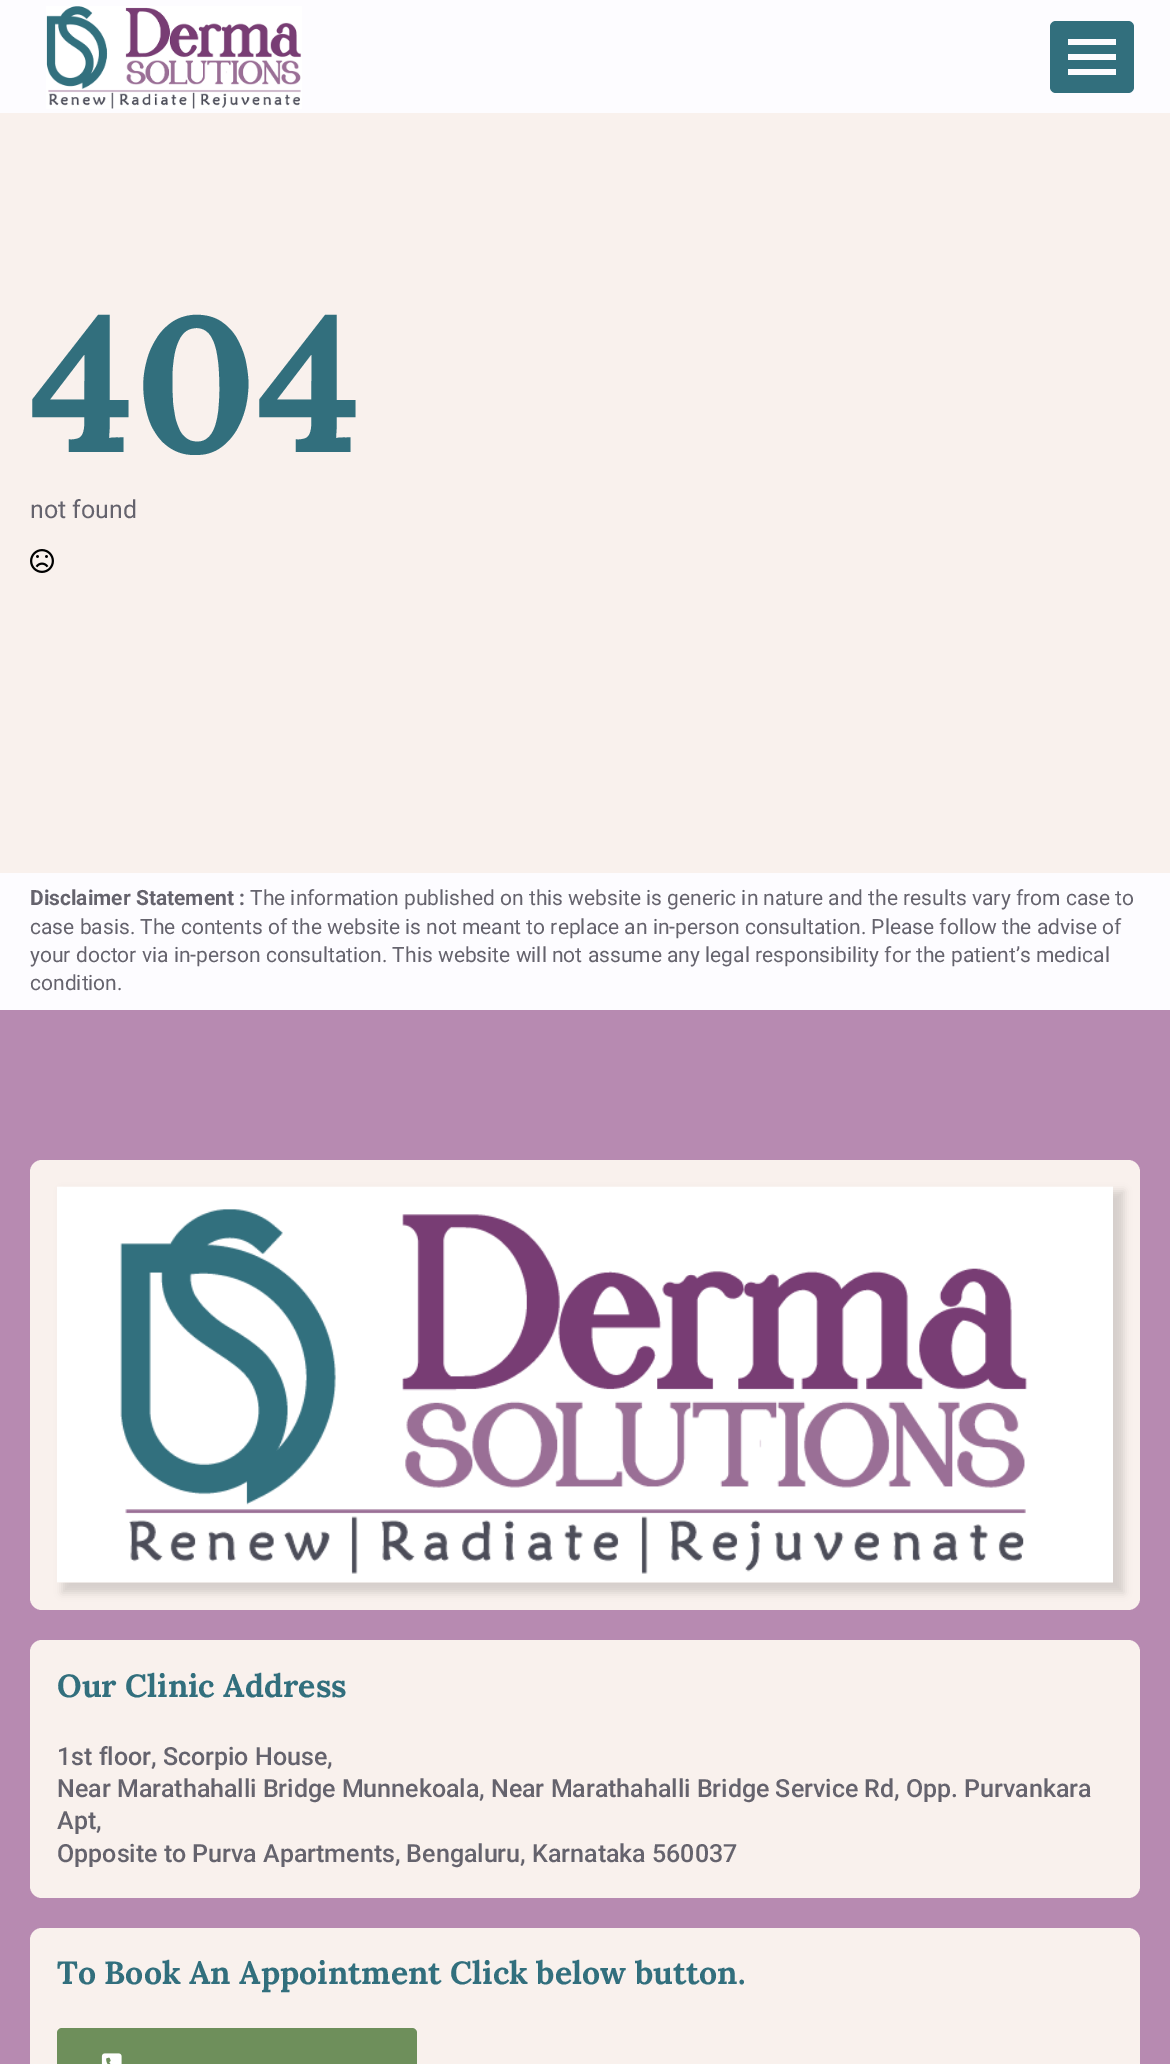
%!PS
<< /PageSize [1170 2064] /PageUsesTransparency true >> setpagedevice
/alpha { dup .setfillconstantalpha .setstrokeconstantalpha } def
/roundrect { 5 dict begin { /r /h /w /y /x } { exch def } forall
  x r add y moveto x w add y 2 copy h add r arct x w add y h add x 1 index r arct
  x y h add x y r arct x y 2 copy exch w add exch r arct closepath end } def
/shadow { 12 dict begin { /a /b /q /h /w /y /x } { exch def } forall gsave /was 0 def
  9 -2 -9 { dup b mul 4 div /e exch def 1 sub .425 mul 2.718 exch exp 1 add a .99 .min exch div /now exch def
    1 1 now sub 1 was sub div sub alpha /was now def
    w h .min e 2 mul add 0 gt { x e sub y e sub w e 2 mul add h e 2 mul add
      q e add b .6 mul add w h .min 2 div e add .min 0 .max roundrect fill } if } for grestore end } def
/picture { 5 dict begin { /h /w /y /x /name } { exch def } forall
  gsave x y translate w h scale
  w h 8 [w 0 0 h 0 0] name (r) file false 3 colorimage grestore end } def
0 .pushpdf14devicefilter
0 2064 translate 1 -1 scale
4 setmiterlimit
0.976 0.945 0.929 setrgbcolor
0 0 1170 2064 rectfill
0.992 0.988 1 setrgbcolor
0 0 1170 113 rectfill
(img1.rgb) 46 6 256 103 picture
0.196 0.435 0.49 setrgbcolor
1050 21 84 72 6 roundrect fill
0.992 0.988 1 setrgbcolor
1068 54 48 6 rectfill
1068 39 48 6 rectfill
1068 69 48 6 rectfill
/Lora-Bold [192 0 0 -192 0 0] selectfont
0.196 0.435 0.49 setrgbcolor
30 452 moveto (404) show
/Roboto-Regular [25 0 0 -25 0 0] selectfont
0.396 0.388 0.427 setrgbcolor
30 518 moveto (not found) show
(img2.rgb) 30 549 24 24 picture
0.992 0.988 1 setrgbcolor
0 873 1170 137 rectfill
/Roboto-Bold [21 0 0 -21 0 0] selectfont
0.396 0.388 0.427 setrgbcolor
30 905 moveto (Disclaimer Statement :) show
/Roboto-Regular [21 0 0 -21 0 0] selectfont
250 905 moveto (The information published on this website is generic in nature and the results vary from case to) show
30 934 moveto (case basis. The contents of the website is not meant to replace an in-person consultation. Please follow the advise of) show
30 962 moveto (your doctor via in-person consultation. This website will not assume any legal responsibility for the patient’s medical) show
30 990 moveto (condition.) show
0.718 0.541 0.694 setrgbcolor
0 1010 1170 1054 rectfill
0.976 0.945 0.929 setrgbcolor
30 1160 1110 450 12 roundrect fill
0 setgray
62 1191 1062 402 0 4 0.14 shadow
(img3.rgb) 57 1186 1056 397 picture
0.976 0.945 0.929 setrgbcolor
30 1640 1110 258 12 roundrect fill
/Lora-Bold [32 0 0 -32 0 0] selectfont
0.196 0.435 0.49 setrgbcolor
57 1697 moveto (Our Clinic Address) show
/Roboto-Medium [25 0 0 -25 0 0] selectfont
0.396 0.388 0.427 setrgbcolor
57 1765 moveto (1st floor, Scorpio House,) show
57 1797 moveto (Near Marathahalli Bridge Munnekoala, Near Marathahalli Bridge Service Rd, Opp. Purvankara) show
57 1829 moveto (Apt,) show
57 1862 moveto (Opposite to Purva Apartments, Bengaluru, Karnataka 560037) show
0.976 0.945 0.929 setrgbcolor
30 1928 1110 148 12 roundrect fill
/Lora-Bold [32 0 0 -32 0 0] selectfont
0.196 0.435 0.49 setrgbcolor
57 1984 moveto (To Book An Appointment Click below button.) show
0.431 0.561 0.357 setrgbcolor
57 2028 360 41 5 roundrect fill
(img4.rgb) 101 2053 21 11 picture
.poppdf14devicefilter showpage
